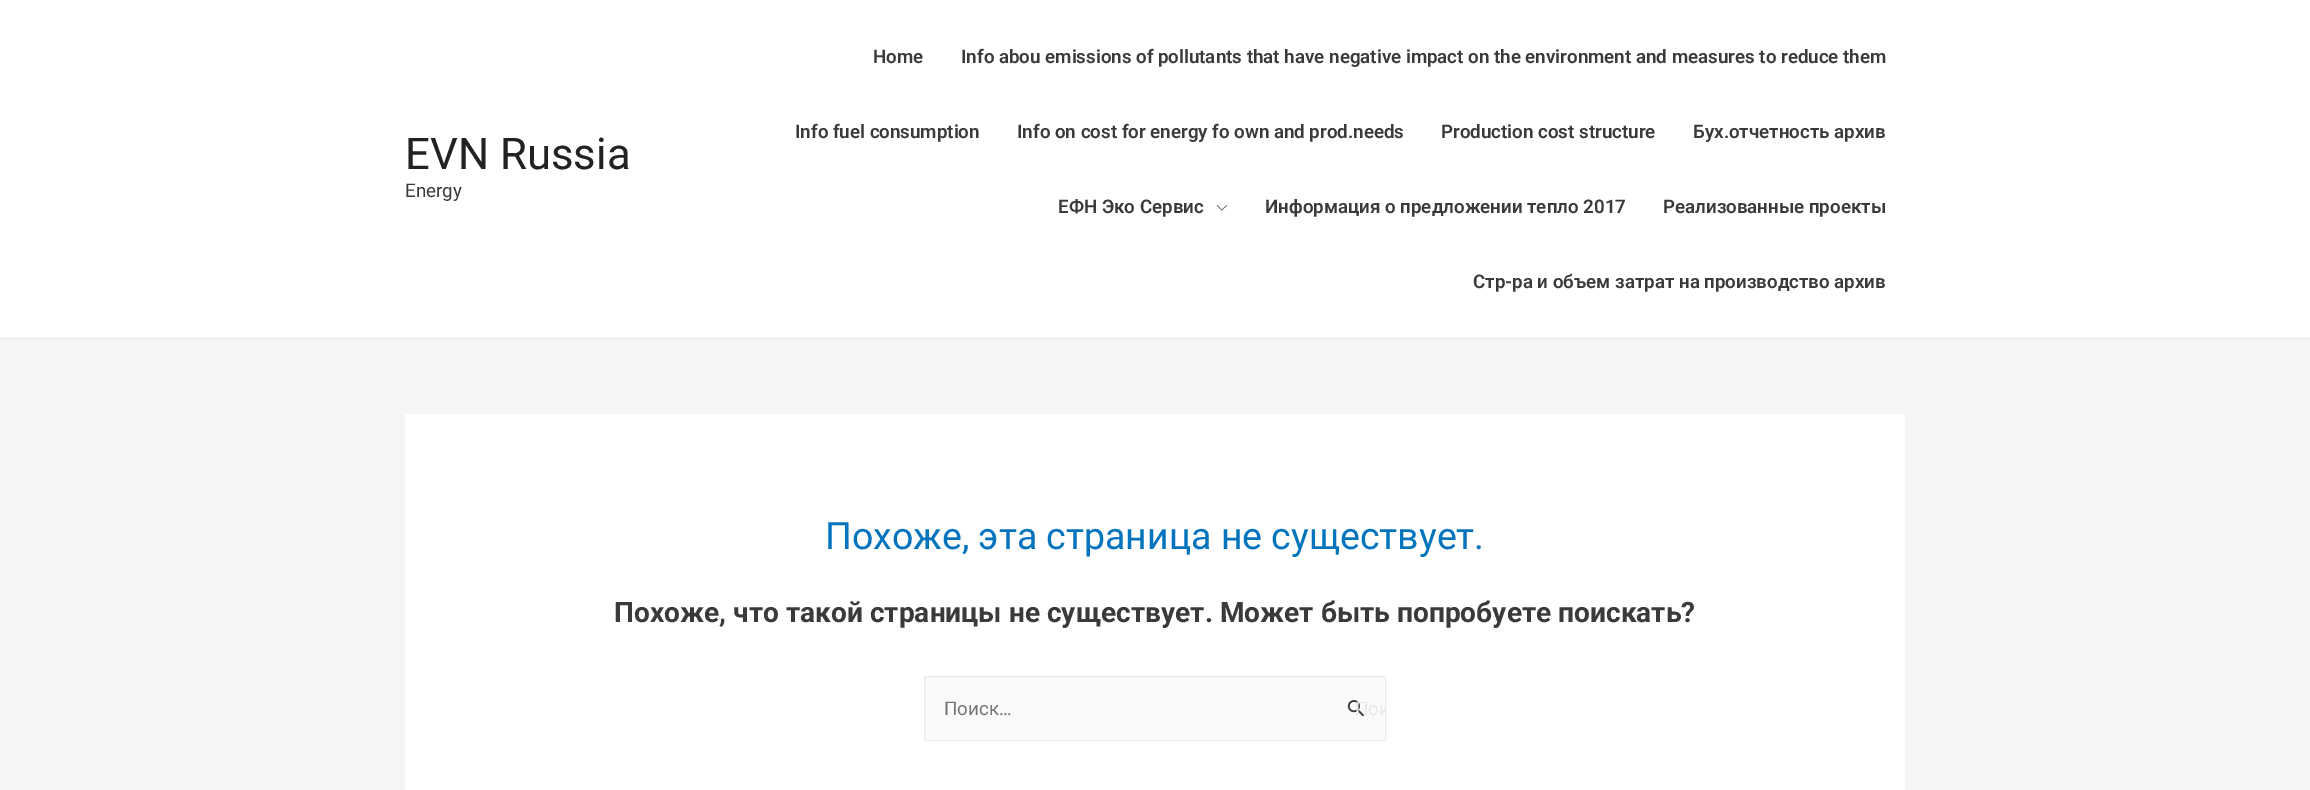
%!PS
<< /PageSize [2310 790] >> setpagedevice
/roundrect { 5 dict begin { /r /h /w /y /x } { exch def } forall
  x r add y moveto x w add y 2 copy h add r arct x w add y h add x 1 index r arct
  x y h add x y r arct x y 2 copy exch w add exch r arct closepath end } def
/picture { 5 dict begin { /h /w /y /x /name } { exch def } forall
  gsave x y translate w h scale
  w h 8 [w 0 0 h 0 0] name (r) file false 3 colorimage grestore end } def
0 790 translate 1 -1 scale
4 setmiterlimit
0.961 setgray
0 0 2310 790 rectfill
1 setgray
0 0 2310 338 rectfill
0.918 setgray
0 338 2310 1 rectfill
/Roboto-Regular [43.75 0 0 -43.75 0 0] selectfont
0.133 setgray
405 169 moveto (EVN Russia) show
/Roboto-Regular [18.75 0 0 -18.75 0 0] selectfont
0.227 setgray
405 197 moveto (Energy) show
/Roboto-SemiBold [18.75 0 0 -18.75 0 0] selectfont
873 63 moveto (Home) show
961 63 moveto (Info abou emissions of pollutants that have negative impact on the environment and measures to reduce them) show
795 138 moveto (Info fuel consumption) show
1017 138 moveto (Info on cost for energy fo own and prod.needs) show
1441 138 moveto (Production cost structure) show
1693 138 moveto (Бух.отчетность архив) show
1058 213 moveto (ЕФН Эко Сервис) show
(img1.rgb) 1216 205 11 6 picture
1265 213 moveto (Информация о предложении тепло 2017) show
1663 213 moveto (Реализованные проекты) show
1473 288 moveto (Стр-ра и объем затрат на производство архив) show
1 setgray
405 414 1500 376 rectfill
/Roboto-Regular [37.5 0 0 -37.5 0 0] selectfont
0.008 0.455 0.745 setrgbcolor
825 549 moveto (Похоже, эта страница не существует.) show
/Roboto-Bold [28.1 0 0 -28.1 0 0] selectfont
0.227 setgray
614 622 moveto (Похоже, что такой страницы не существует. Может быть попробуете поискать?) show
0.98 setgray
924.5 676.5 461 64 2 roundrect gsave fill grestore
0.918 setgray
stroke
/Roboto-Regular [18.75 0 0 -18.75 0 0] selectfont
0.459 setgray
944 715 moveto (Поиск…) show
(img2.rgb) 1347 700 18 17 picture
gsave
1330 676 56 68 2.5 roundrect clip newpath
0.91 setgray
1355 715 moveto (Пои) show
grestore
showpage
